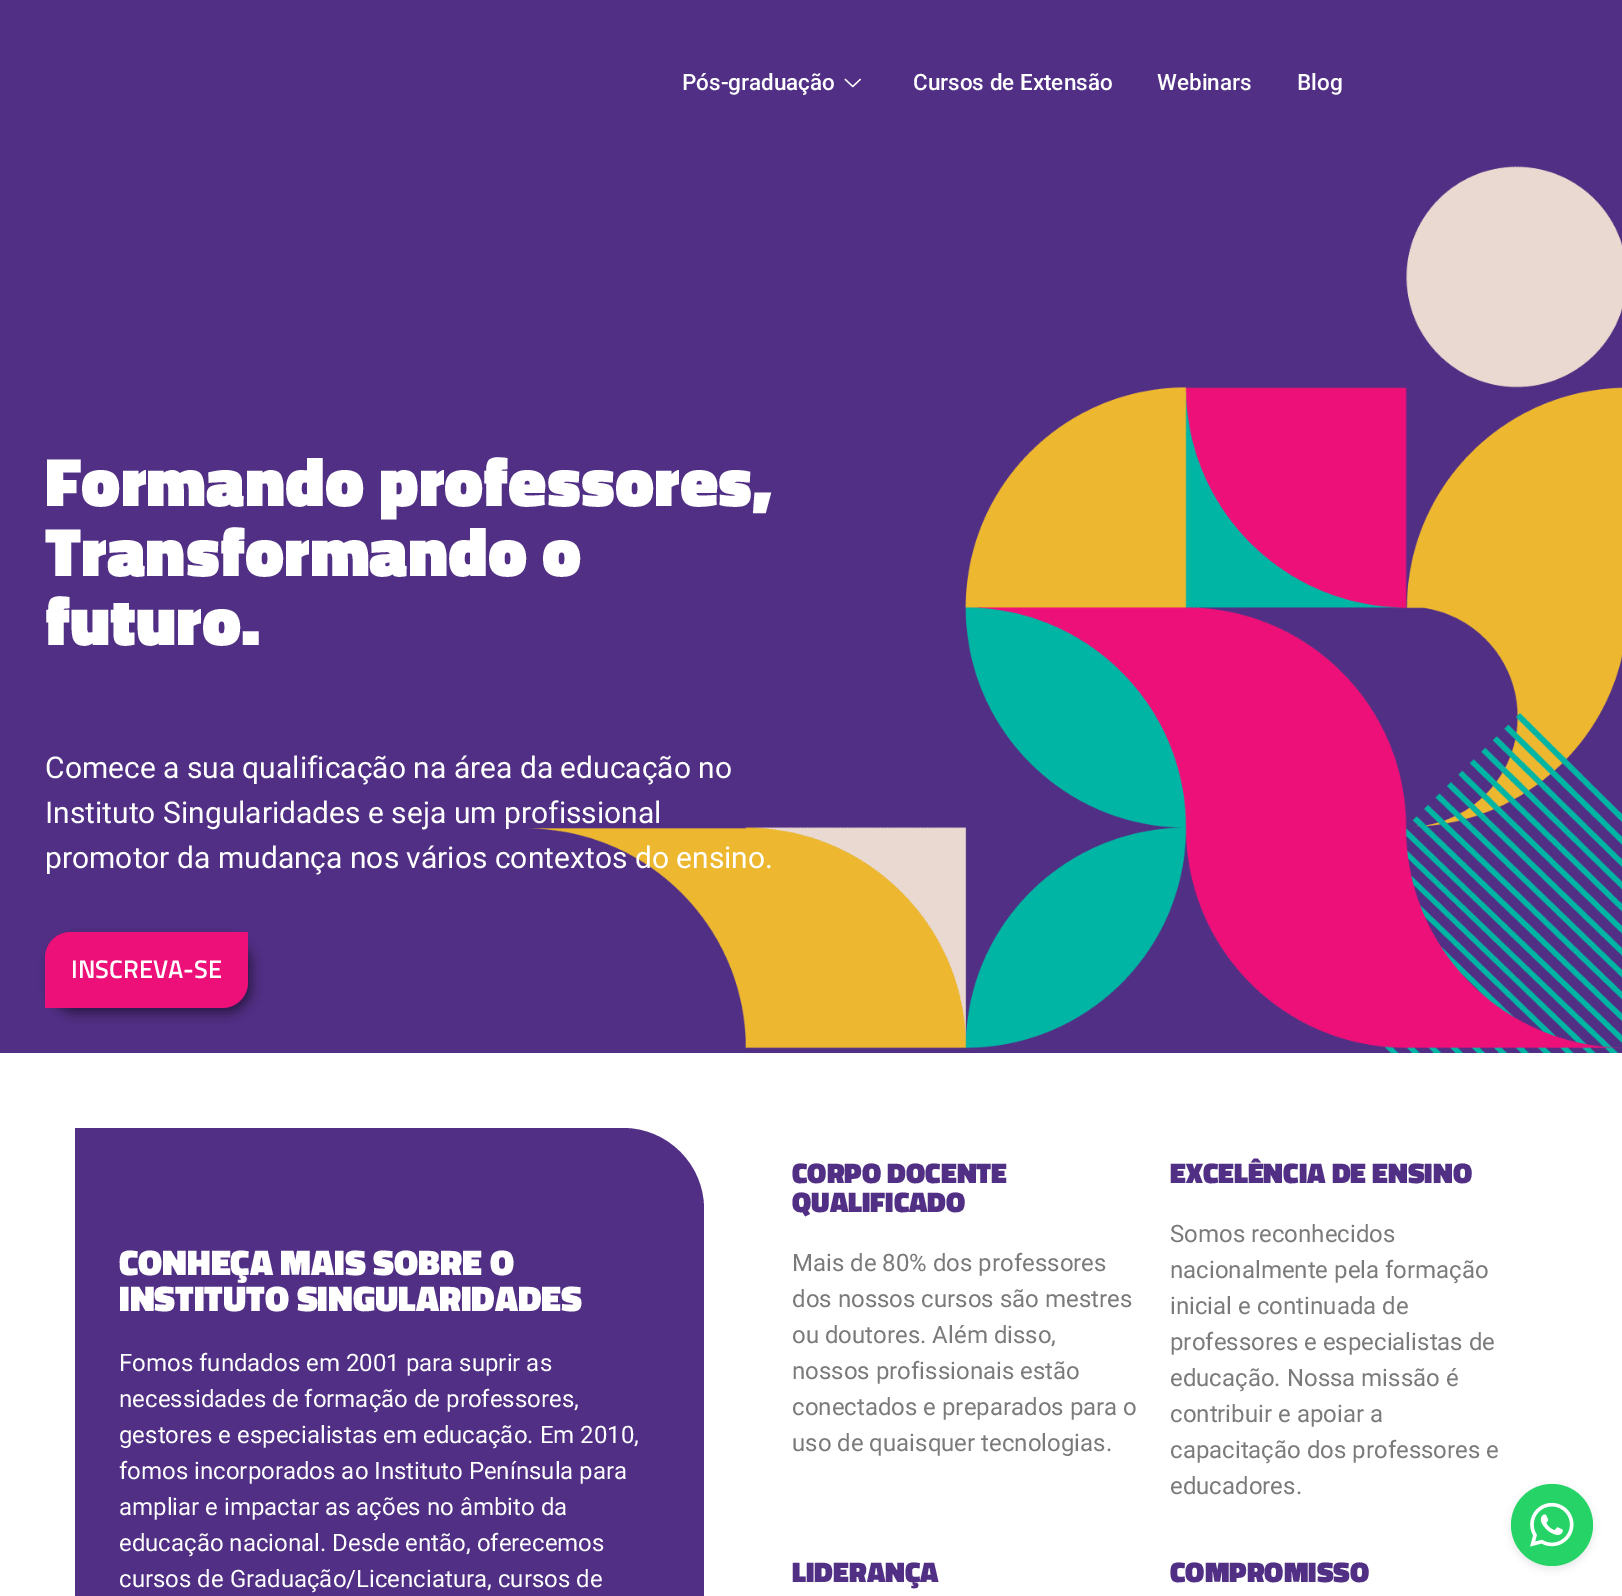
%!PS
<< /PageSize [1622 1596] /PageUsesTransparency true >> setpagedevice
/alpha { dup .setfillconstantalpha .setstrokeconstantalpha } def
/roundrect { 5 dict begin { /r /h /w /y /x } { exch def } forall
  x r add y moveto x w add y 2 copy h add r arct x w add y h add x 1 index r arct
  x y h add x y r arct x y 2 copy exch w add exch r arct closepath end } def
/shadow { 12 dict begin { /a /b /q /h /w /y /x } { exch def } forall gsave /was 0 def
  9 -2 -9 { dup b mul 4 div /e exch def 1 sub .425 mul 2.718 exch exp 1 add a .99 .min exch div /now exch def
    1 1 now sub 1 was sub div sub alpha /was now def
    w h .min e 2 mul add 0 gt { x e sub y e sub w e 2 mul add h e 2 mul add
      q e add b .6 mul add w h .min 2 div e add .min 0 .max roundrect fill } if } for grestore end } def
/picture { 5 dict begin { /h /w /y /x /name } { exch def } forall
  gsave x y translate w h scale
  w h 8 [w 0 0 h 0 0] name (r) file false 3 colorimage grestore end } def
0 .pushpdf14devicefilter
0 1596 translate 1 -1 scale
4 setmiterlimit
1 setgray
0 0 1622 1596 rectfill
0.318 0.184 0.522 setrgbcolor
0 0 1622 1053 rectfill
/Roboto-Medium [22.5 0 0 -22.5 0 0] selectfont
1 setgray
682 90 moveto (Pós-graduação) show
(img1.rgb) 844 78 17 10 picture
913 90 moveto (Cursos de Extensão) show
1157 90 moveto (Webinars) show
1297 90 moveto (Blog) show
(img2.rgb) 527 166 1095 887 picture
/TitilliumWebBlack-Black [69.6 0 0 -69.6 0 0] selectfont
45 506 moveto (Formando professores,) show
45 576 moveto (Transformando o) show
45 645 moveto (futuro.) show
/Roboto-Regular [30 0 0 -30 0 0] selectfont
45 778 moveto (Comece a sua qualificação na área da educação no) show
45 823 moveto (Instituto Singularidades e seja um profissional) show
45 868 moveto (promotor da mudança nos vários contextos do ensino.) show
0 setgray
51 939 200 74 24 6 0.5 shadow
0.925 0.063 0.471 setrgbcolor
newpath 71 932 moveto 248 932 lineto 248 982 lineto 248 996.5 236.5 1008 222 1008 curveto 45 1008 lineto 45 958 lineto 45 943.5 56.5 932 71 932 curveto closepath fill
/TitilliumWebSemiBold-SemiBold [25.5 0 0 -25.5 0 0] selectfont
1 setgray
71 978 moveto (INSCREVA-SE) show
0.318 0.184 0.522 setrgbcolor
newpath 75 1128 moveto 623 1128 lineto 667.5 1128 704 1164.5 704 1209 curveto 704 1596 lineto 704 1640.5 667.5 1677 623 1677 curveto 75 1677 lineto closepath fill
/TitilliumWebBlack-Black [36 0 0 -36 0 0] selectfont
1 setgray
119 1275 moveto (CONHEÇA MAIS SOBRE O) show
119 1311 moveto (INSTITUTO SINGULARIDADES) show
/Roboto-Regular [24 0 0 -24 0 0] selectfont
119 1371 moveto (Fomos fundados em 2001 para suprir as) show
119 1407 moveto (necessidades de formação de professores,) show
119 1443 moveto (gestores e especialistas em educação. Em 2010,) show
119 1479 moveto (fomos incorporados ao Instituto Península para) show
119 1515 moveto (ampliar e impactar as ações no âmbito da) show
119 1551 moveto (educação nacional. Desde então, oferecemos) show
119 1587 moveto (cursos de Graduação/Licenciatura, cursos de) show
/TitilliumWebBlack-Black [28.75 0 0 -28.75 0 0] selectfont
0.318 0.184 0.522 setrgbcolor
792 1183 moveto (CORPO DOCENTE) show
792 1212 moveto (QUALIFICADO) show
/Roboto-Regular [24 0 0 -24 0 0] selectfont
0.478 setgray
792 1271 moveto (Mais de 80% dos professores) show
792 1307 moveto (dos nossos cursos são mestres) show
792 1343 moveto (ou doutores. Além disso,) show
792 1379 moveto (nossos profissionais estão) show
792 1415 moveto (conectados e preparados para o) show
792 1451 moveto (uso de quaisquer tecnologias.) show
/TitilliumWebBlack-Black [28.75 0 0 -28.75 0 0] selectfont
0.318 0.184 0.522 setrgbcolor
1170 1183 moveto (EXCELÊNCIA DE ENSINO) show
/Roboto-Regular [24 0 0 -24 0 0] selectfont
0.478 setgray
1170 1242 moveto (Somos reconhecidos) show
1170 1278 moveto (nacionalmente pela formação) show
1170 1314 moveto (inicial e continuada de) show
1170 1350 moveto (professores e especialistas de) show
1170 1386 moveto (educação. Nossa missão é) show
1170 1422 moveto (contribuir e apoiar a) show
1170 1458 moveto (capacitação dos professores e) show
1170 1494 moveto (educadores.) show
/TitilliumWebBlack-Black [28.75 0 0 -28.75 0 0] selectfont
0.318 0.184 0.522 setrgbcolor
792 1582 moveto (LIDERANÇA) show
1170 1582 moveto (COMPROMISSO) show
0 setgray
1511 1487 82 82 41 4 0.1 shadow
0.145 0.827 0.4 setrgbcolor
newpath 1552 1525 41 0 360 arc closepath fill
(img3.rgb) 1530 1502 44 45 picture
.poppdf14devicefilter showpage
